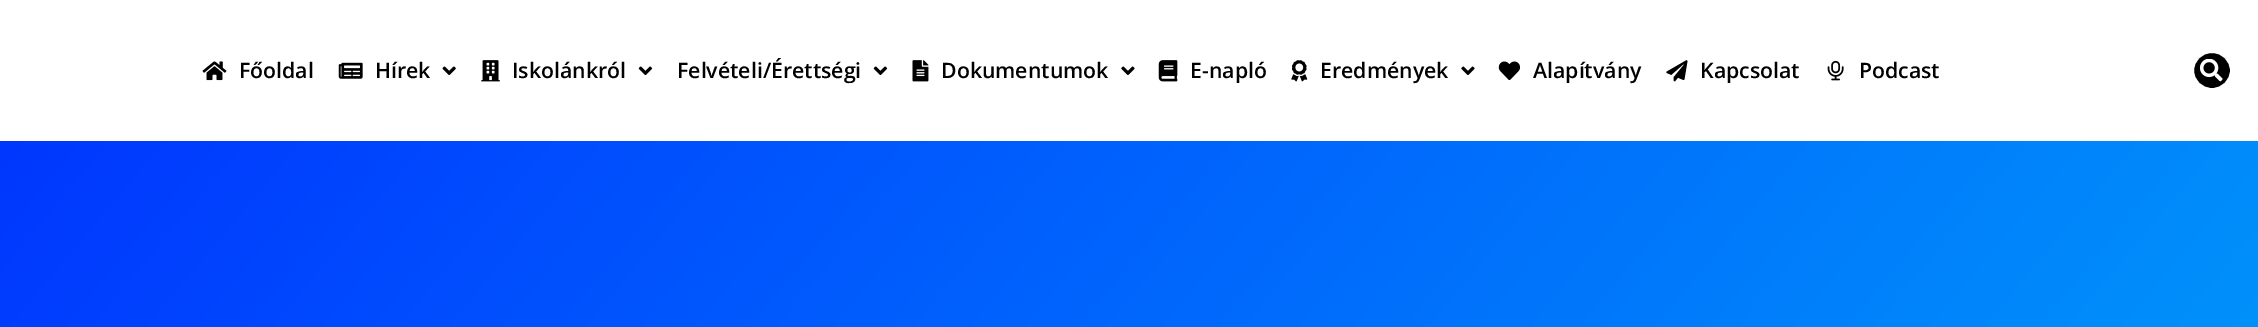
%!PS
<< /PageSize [2258 327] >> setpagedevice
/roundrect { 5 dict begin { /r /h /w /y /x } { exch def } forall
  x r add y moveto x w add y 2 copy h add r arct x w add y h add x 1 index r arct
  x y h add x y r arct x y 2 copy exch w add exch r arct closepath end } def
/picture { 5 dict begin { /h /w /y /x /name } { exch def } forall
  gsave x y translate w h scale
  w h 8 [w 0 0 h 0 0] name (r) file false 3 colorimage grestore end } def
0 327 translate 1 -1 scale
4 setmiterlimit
1 setgray
0 0 2258 327 rectfill
(img1.rgb) 202 61 25 20 picture
/OpenSans-SemiBold [21.25 0 0 -21.25 0 0] selectfont
0 setgray
239 78 moveto (Főoldal) show
(img2.rgb) 338 62 25 17 picture
375 78 moveto (Hírek) show
(img3.rgb) 442 66 14 9 picture
(img4.rgb) 481 60 19 22 picture
512 78 moveto (Iskolánkról) show
(img5.rgb) 638 66 15 9 picture
677 78 moveto (Felvételi/Érettségi) show
(img5.rgb) 873 66 15 9 picture
(img6.rgb) 912 60 17 22 picture
941 78 moveto (Dokumentumok) show
(img7.rgb) 1121 66 14 9 picture
(img8.rgb) 1158 60 20 22 picture
1190 78 moveto (E-napló) show
(img9.rgb) 1291 60 17 22 picture
1320 78 moveto (Eredmények) show
(img7.rgb) 1461 66 14 9 picture
(img10.rgb) 1498 61 22 20 picture
1533 78 moveto (Alapítvány) show
(img11.rgb) 1666 60 22 22 picture
1700 78 moveto (Kapcsolat) show
(img12.rgb) 1827 60 17 21 picture
1859 78 moveto (Podcast) show
2192.5 51.5 39 38 19 roundrect gsave fill grestore
1 setgray
3 setlinewidth
stroke
(img13.rgb) 2200 59 23 23 picture
gsave newpath 0 141 moveto 2258 141 lineto 2258 327 lineto 0 327 lineto closepath clip newpath
<< /ShadingType 2 /ColorSpace /DeviceRGB /Coords [282 -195 1976 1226] /Extend [true true] /Function << /FunctionType 3 /Domain [0 1] /Functions [<< /FunctionType 2 /Domain [0 1] /C0 [0 0.216 1] /C1 [0 0.596 0.98] /N 1 >> << /FunctionType 2 /Domain [0 1] /C0 [0 0.596 0.98] /C1 [0 0.596 0.98] /N 1 >>] /Bounds [0.9] /Encode [0 1 0 1] >> >> shfill grestore
showpage
